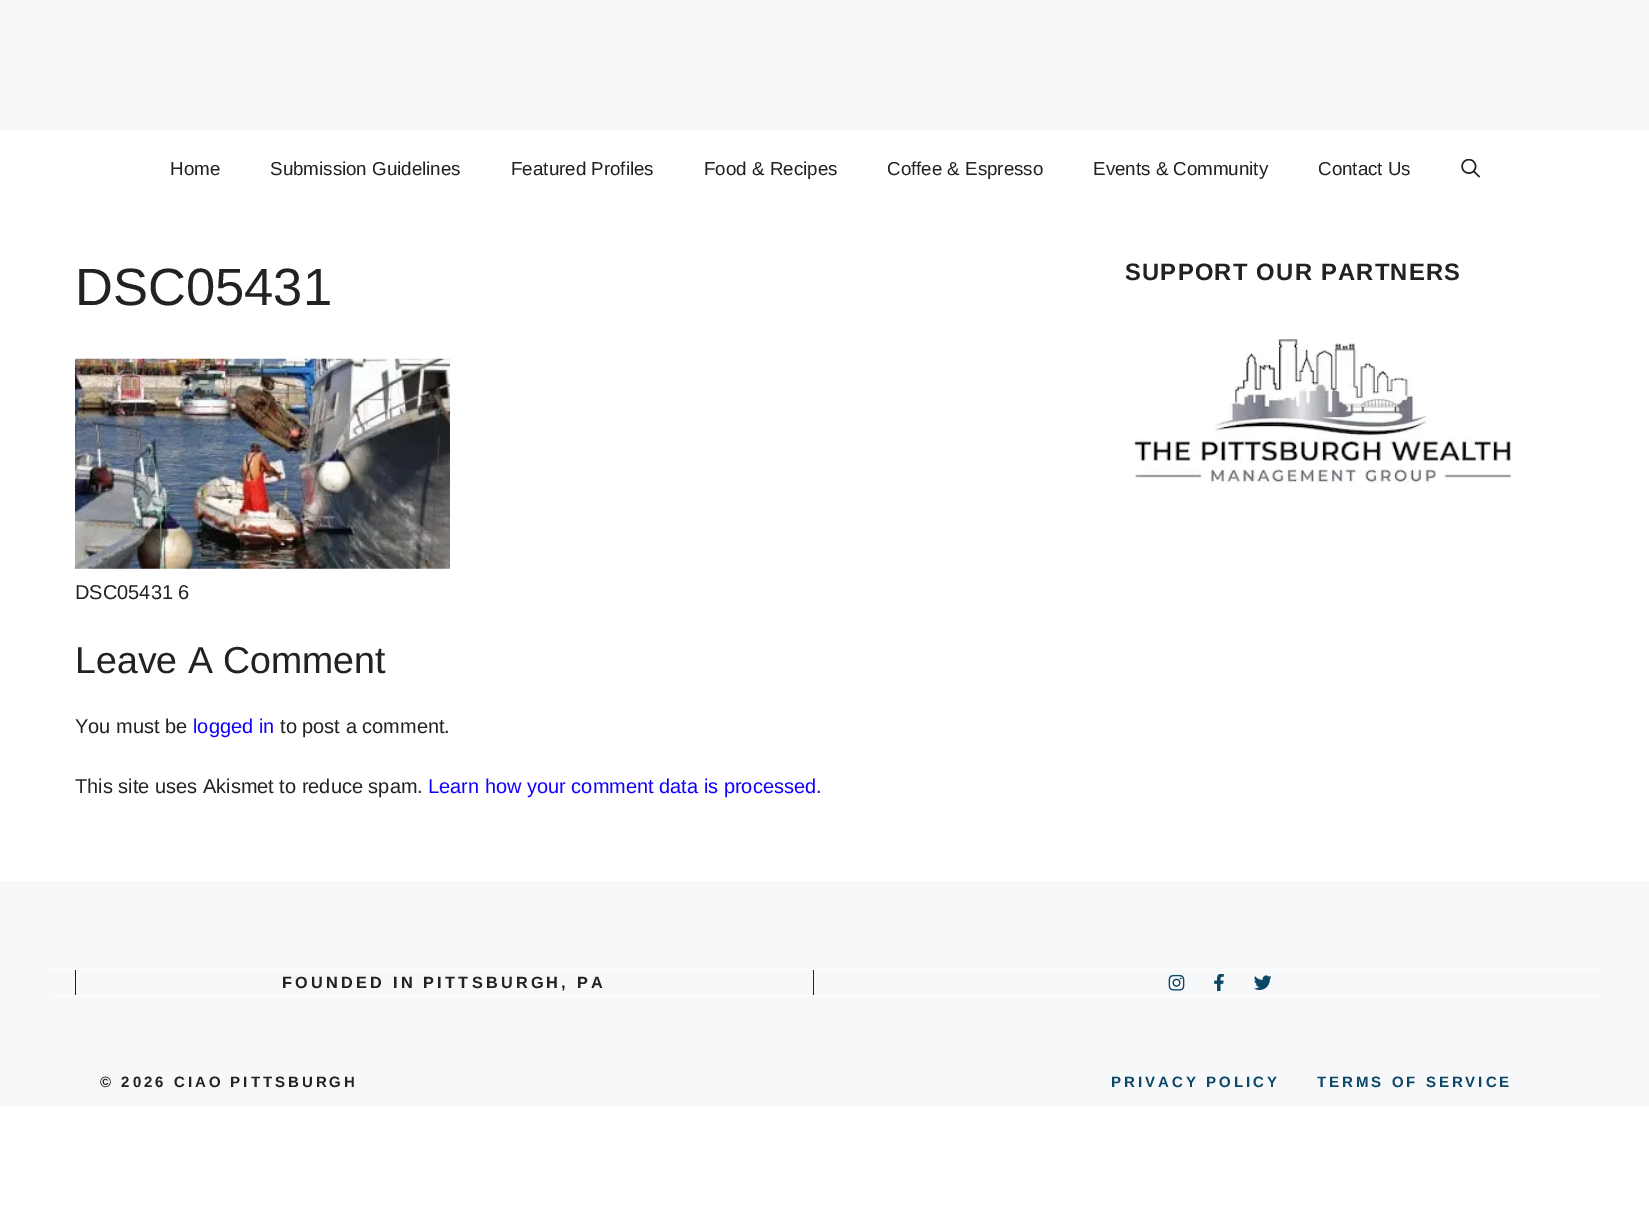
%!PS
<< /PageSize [1649 1228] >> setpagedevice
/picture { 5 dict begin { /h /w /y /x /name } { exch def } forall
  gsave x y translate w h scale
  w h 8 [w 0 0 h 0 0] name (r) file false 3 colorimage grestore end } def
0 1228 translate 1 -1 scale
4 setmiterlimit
1 setgray
0 0 1649 1228 rectfill
0.969 0.973 0.976 setrgbcolor
0 0 1649 131 rectfill
/LiberationSans-Regular [18.75 0 0 -18.75 0 0] selectfont
0.133 setgray
170 175 moveto (Home) show
270 175 moveto (Submission Guidelines) show
511 175 moveto (Featured Profiles) show
704 175 moveto (Food & Recipes) show
887 175 moveto (Coffee & Espresso) show
1093 175 moveto (Events & Community) show
1318 175 moveto (Contact Us) show
(img1.rgb) 1461 159 19 19 picture
/LiberationSans-Regular [52.5 0 0 -52.5 0 0] selectfont
75 305 moveto (DSC05431) show
(img2.rgb) 75 358 375 211 picture
/LiberationSans-Regular [20 0 0 -20 0 0] selectfont
75 599 moveto (DSC05431 6) show
/LiberationSans-Regular [37.5 0 0 -37.5 0 0] selectfont
75 673 moveto (Leave A Comment) show
/LiberationSans-Regular [20 0 0 -20 0 0] selectfont
75 733 moveto (You must be) show
0.067 0 1 setrgbcolor
193 733 moveto (logged in) show
0.133 setgray
280 733 moveto (to post a comment.) show
75 793 moveto (This site uses Akismet to reduce spam.) show
0.067 0 1 setrgbcolor
428 793 moveto (Learn how your comment data is processed.) show
/LiberationSans-Bold [23.75 0 0 -23.75 0 0] selectfont
0.133 setgray
1125 280 moveto 1.25 0 (SUPPORT OUR PARTNERS) ashow
(img3.rgb) 1134 339 378 145 picture
0.969 0.973 0.976 setrgbcolor
0 881 1649 225 rectfill
1 setgray
50 969 1550 1 rectfill
50 995 1550 1 rectfill
0.133 setgray
813 970 1 25 rectfill
75 970 1 25 rectfill
/LiberationSans-Bold [16.25 0 0 -16.25 0 0] selectfont
282 988 moveto 3.25 0 (FOUNDED IN PITTSBURGH, PA) ashow
(img4.rgb) 1168 974 17 17 picture
(img5.rgb) 1214 974 10 17 picture
(img6.rgb) 1254 975 17 16 picture
/LiberationSans-Bold [15 0 0 -15 0 0] selectfont
100 1087 moveto 3 0 (© 2026 CIAO PITTSBURGH) ashow
0.047 0.278 0.404 setrgbcolor
1111 1087 moveto 3 0 (PRIVACY POLICY) ashow
1317 1087 moveto 3 0 (TERMS OF SERVICE) ashow
showpage
